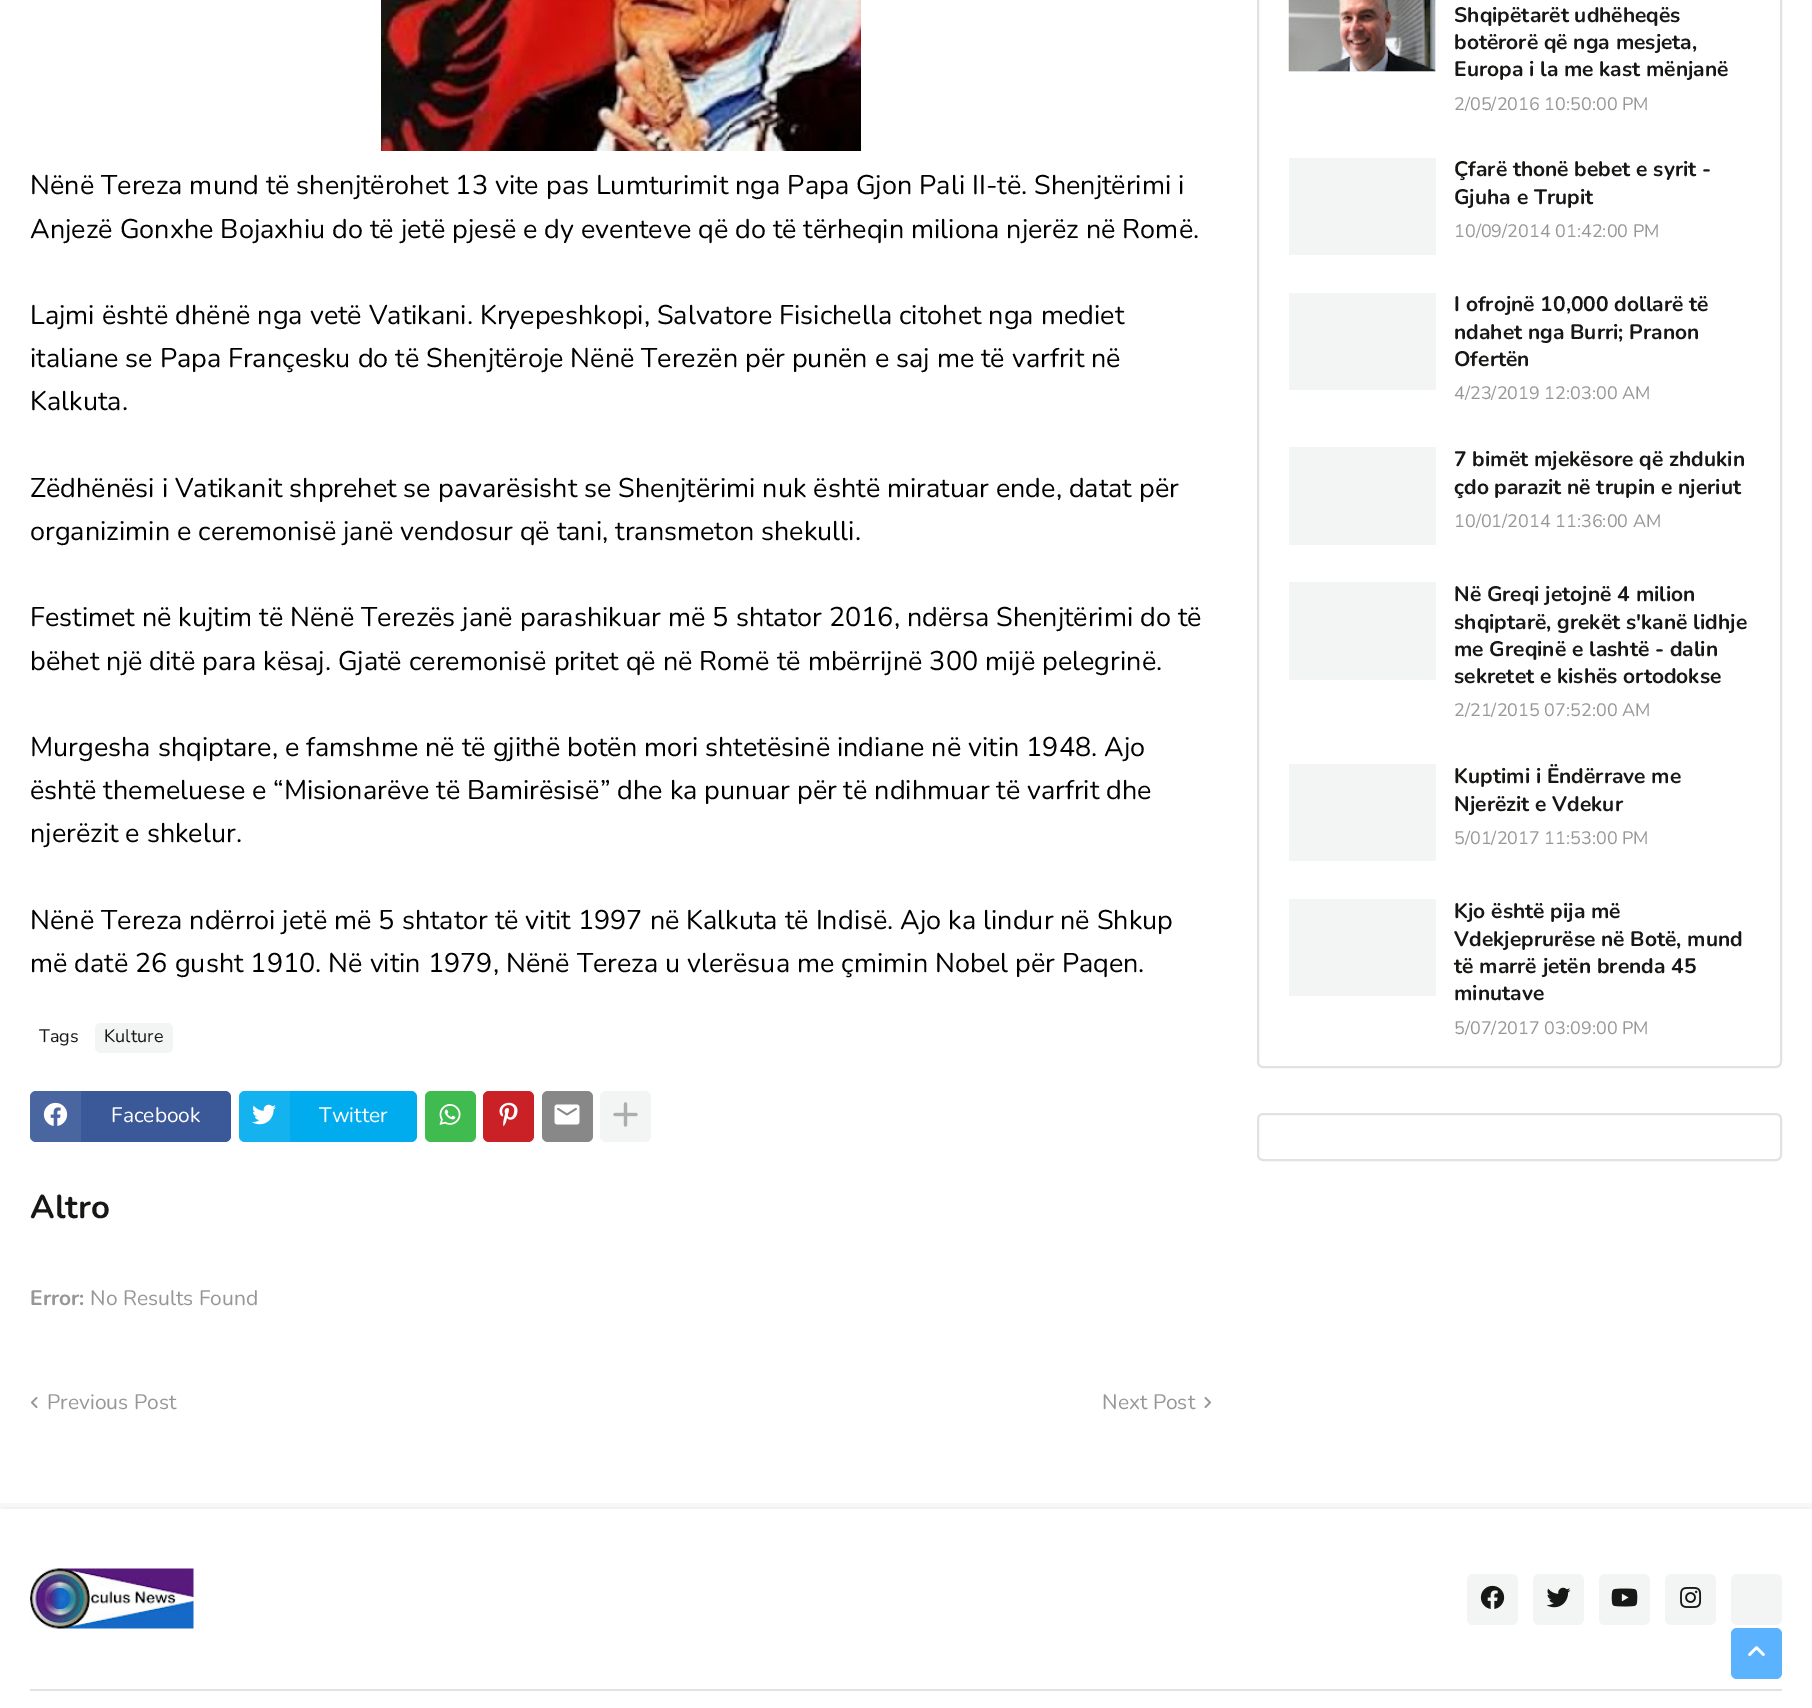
%!PS
<< /PageSize [1812 1708] /PageUsesTransparency true >> setpagedevice
/alpha { dup .setfillconstantalpha .setstrokeconstantalpha } def
/roundrect { 5 dict begin { /r /h /w /y /x } { exch def } forall
  x r add y moveto x w add y 2 copy h add r arct x w add y h add x 1 index r arct
  x y h add x y r arct x y 2 copy exch w add exch r arct closepath end } def
/shadow { 12 dict begin { /a /b /q /h /w /y /x } { exch def } forall gsave /was 0 def
  9 -2 -9 { dup b mul 4 div /e exch def 1 sub .425 mul 2.718 exch exp 1 add a .99 .min exch div /now exch def
    1 1 now sub 1 was sub div sub alpha /was now def
    w h .min e 2 mul add 0 gt { x e sub y e sub w e 2 mul add h e 2 mul add
      q e add b .6 mul add w h .min 2 div e add .min 0 .max roundrect fill } if } for grestore end } def
/picture { 5 dict begin { /h /w /y /x /name } { exch def } forall
  gsave x y translate w h scale
  w h 8 [w 0 0 h 0 0] name (r) file false 3 colorimage grestore end } def
0 .pushpdf14devicefilter
0 1708 translate 1 -1 scale
4 setmiterlimit
1 setgray
0 0 1812 1708 rectfill
(img1.rgb) 381 0 480 151 picture
/Nunito-Regular [27 0 0 -27 0 0] selectfont
0 setgray
30 194 moveto (Nënë Tereza mund të shenjtërohet 13 vite pas Lumturimit nga Papa Gjon Pali II-të. Shenjtërimi i) show
30 238 moveto (Anjezë Gonxhe Bojaxhiu do të jetë pjesë e dy eventeve që do të tërheqin miliona njerëz në Romë.) show
30 324 moveto (Lajmi është dhënë nga vetë Vatikani. Kryepeshkopi, Salvatore Fisichella citohet nga mediet) show
30 367 moveto (italiane se Papa Françesku do të Shenjtëroje Nënë Terezën për punën e saj me të varfrit në) show
30 410 moveto (Kalkuta.) show
30 497 moveto (Zëdhënësi i Vatikanit shprehet se pavarësisht se Shenjtërimi nuk është miratuar ende, datat për) show
30 540 moveto (organizimin e ceremonisë janë vendosur që tani, transmeton shekulli.) show
30 626 moveto (Festimet në kujtim të Nënë Terezës janë parashikuar më 5 shtator 2016, ndërsa Shenjtërimi do të) show
30 670 moveto (bëhet një ditë para kësaj. Gjatë ceremonisë pritet që në Romë të mbërrijnë 300 mijë pelegrinë.) show
30 756 moveto (Murgesha shqiptare, e famshme në të gjithë botën mori shtetësinë indiane në vitin 1948. Ajo) show
30 799 moveto (është themeluese e “Misionarëve të Bamirësisë” dhe ka punuar për të ndihmuar të varfrit dhe) show
30 842 moveto (njerëzit e shkelur.) show
30 929 moveto (Nënë Tereza ndërroi jetë më 5 shtator të vitit 1997 në Kalkuta të Indisë. Ajo ka lindur në Shkup) show
30 972 moveto (më datë 26 gusht 1910. Në vitin 1979, Nënë Tereza u vlerësua me çmimin Nobel për Paqen.) show
/Nunito-Regular [18 0 0 -18 0 0] selectfont
0.09 0.094 0.086 setrgbcolor
39 1042 moveto (Tags) show
0.953 0.961 0.961 setrgbcolor
95 1023 78 30 6 roundrect fill
0.09 0.094 0.086 setrgbcolor
104 1042 moveto (Kulture) show
0.231 0.349 0.6 setrgbcolor
30 1091 201 51 6 roundrect fill
0.08 alpha
1 setgray
newpath 36 1091 moveto 81 1091 lineto 81 1142 lineto 36 1142 lineto 32.5 1142 30 1139.5 30 1136 curveto 30 1097 lineto 30 1093.5 32.5 1091 36 1091 curveto closepath fill
1 alpha
(img2.rgb) 43 1102 25 24 picture
/Nunito-Regular [21 0 0 -21 0 0] selectfont
111 1122 moveto (Facebook) show
0 0.675 0.933 setrgbcolor
239 1091 178 51 6 roundrect fill
0.08 alpha
1 setgray
newpath 245 1091 moveto 290 1091 lineto 290 1142 lineto 245 1142 lineto 241.5 1142 239 1139.5 239 1136 curveto 239 1097 lineto 239 1093.5 241.5 1091 245 1091 curveto closepath fill
1 alpha
(img3.rgb) 252 1104 24 21 picture
319 1122 moveto (Twitter) show
0.247 0.733 0.314 setrgbcolor
425 1091 51 51 6 roundrect fill
(img4.rgb) 439 1104 22 21 picture
0.792 0.129 0.153 setrgbcolor
483 1091 51 51 6 roundrect fill
(img5.rgb) 499 1102 19 25 picture
0.533 setgray
542 1091 51 51 6 roundrect fill
(img6.rgb) 554 1104 26 21 picture
0.953 0.961 0.961 setrgbcolor
600 1091 51 51 6 roundrect fill
(img7.rgb) 613 1102 25 25 picture
/Nunito-Bold [33 0 0 -33 0 0] selectfont
0.09 0.094 0.086 setrgbcolor
30 1218 moveto (Altro) show
/Nunito-Bold [21 0 0 -21 0 0] selectfont
0.592 setgray
30 1305 moveto (Error:) show
/Nunito-Regular [21 0 0 -21 0 0] selectfont
90 1305 moveto (No Results Found) show
(img8.rgb) 30 1397 8 11 picture
47 1409 moveto (Previous Post) show
1102 1409 moveto (Next Post) show
(img9.rgb) 1204 1397 8 11 picture
0.886 setgray
2 setlinewidth
1258 -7 523 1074 5 roundrect stroke
0.953 0.961 0.961 setrgbcolor
1289 0 147 72 rectfill
(img10.rgb) 1288 0 148 72 picture
/Nunito-Bold [21 0 0 -21 0 0] selectfont
0.09 0.094 0.086 setrgbcolor
1454 22 moveto (Shqipëtarët udhëheqës) show
1454 49 moveto (botërorë që nga mesjeta,) show
1454 76 moveto (Europa i la me kast mënjanë) show
/Nunito-Regular [18 0 0 -18 0 0] selectfont
0.592 setgray
1454 110 moveto (2/05/2016 10:50:00 PM) show
0.953 0.961 0.961 setrgbcolor
1289 158 147 97 rectfill
/Nunito-Bold [21 0 0 -21 0 0] selectfont
0.09 0.094 0.086 setrgbcolor
1454 176 moveto (Çfarë thonë bebet e syrit -) show
1454 204 moveto (Gjuha e Trupit) show
/Nunito-Regular [18 0 0 -18 0 0] selectfont
0.592 setgray
1454 237 moveto (10/09/2014 01:42:00 PM) show
0.953 0.961 0.961 setrgbcolor
1289 293 147 97 rectfill
/Nunito-Bold [21 0 0 -21 0 0] selectfont
0.09 0.094 0.086 setrgbcolor
1454 311 moveto (I ofrojnë 10,000 dollarë të) show
1454 339 moveto (ndahet nga Burri; Pranon) show
1454 366 moveto (Ofertën) show
/Nunito-Regular [18 0 0 -18 0 0] selectfont
0.592 setgray
1454 399 moveto (4/23/2019 12:03:00 AM) show
0.953 0.961 0.961 setrgbcolor
1289 447 147 98 rectfill
/Nunito-Bold [21 0 0 -21 0 0] selectfont
0.09 0.094 0.086 setrgbcolor
1454 466 moveto (7 bimët mjekësore që zhdukin) show
1454 494 moveto (çdo parazit në trupin e njeriut) show
/Nunito-Regular [18 0 0 -18 0 0] selectfont
0.592 setgray
1454 527 moveto (10/01/2014 11:36:00 AM) show
0.953 0.961 0.961 setrgbcolor
1289 582 147 98 rectfill
/Nunito-Bold [21 0 0 -21 0 0] selectfont
0.09 0.094 0.086 setrgbcolor
1454 601 moveto (Në Greqi jetojnë 4 milion) show
1454 629 moveto (shqiptarë, grekët s'kanë lidhje) show
1454 656 moveto (me Greqinë e lashtë - dalin) show
1454 683 moveto (sekretet e kishës ortodokse) show
/Nunito-Regular [18 0 0 -18 0 0] selectfont
0.592 setgray
1454 716 moveto (2/21/2015 07:52:00 AM) show
0.953 0.961 0.961 setrgbcolor
1289 764 147 97 rectfill
/Nunito-Bold [21 0 0 -21 0 0] selectfont
0.09 0.094 0.086 setrgbcolor
1454 783 moveto (Kuptimi i Ëndërrave me) show
1454 811 moveto (Njerëzit e Vdekur) show
/Nunito-Regular [18 0 0 -18 0 0] selectfont
0.592 setgray
1454 844 moveto (5/01/2017 11:53:00 PM) show
0.953 0.961 0.961 setrgbcolor
1289 899 147 97 rectfill
/Nunito-Bold [21 0 0 -21 0 0] selectfont
0.09 0.094 0.086 setrgbcolor
1454 918 moveto (Kjo është pija më) show
1454 946 moveto (Vdekjeprurëse në Botë, mund) show
1454 973 moveto (të marrë jetën brenda 45) show
1454 1000 moveto (minutave) show
/Nunito-Regular [18 0 0 -18 0 0] selectfont
0.592 setgray
1454 1034 moveto (5/07/2017 03:09:00 PM) show
0.886 setgray
1258 1114 523 46 5 roundrect stroke
gsave
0 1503 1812 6 rectclip
0 setgray
0 1509 1812 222 0 7.5 0.1 shadow
grestore
(img11.rgb) 30 1568 164 61 picture
0.953 0.961 0.961 setrgbcolor
1467 1574 51 51 6 roundrect fill
(img12.rgb) 1480 1585 25 24 picture
1533 1574 51 51 6 roundrect fill
(img13.rgb) 1546 1587 25 21 picture
1599 1574 51 51 6 roundrect fill
(img14.rgb) 1611 1588 27 19 picture
1665 1574 51 51 6 roundrect fill
(img15.rgb) 1680 1587 22 21 picture
1731 1574 51 51 6 roundrect fill
0.886 setgray
30 1689 1752 2 rectfill
0.357 0.698 1 setrgbcolor
1731 1628 51 51 6 roundrect fill
(img16.rgb) 1748 1646 17 10 picture
.poppdf14devicefilter showpage
